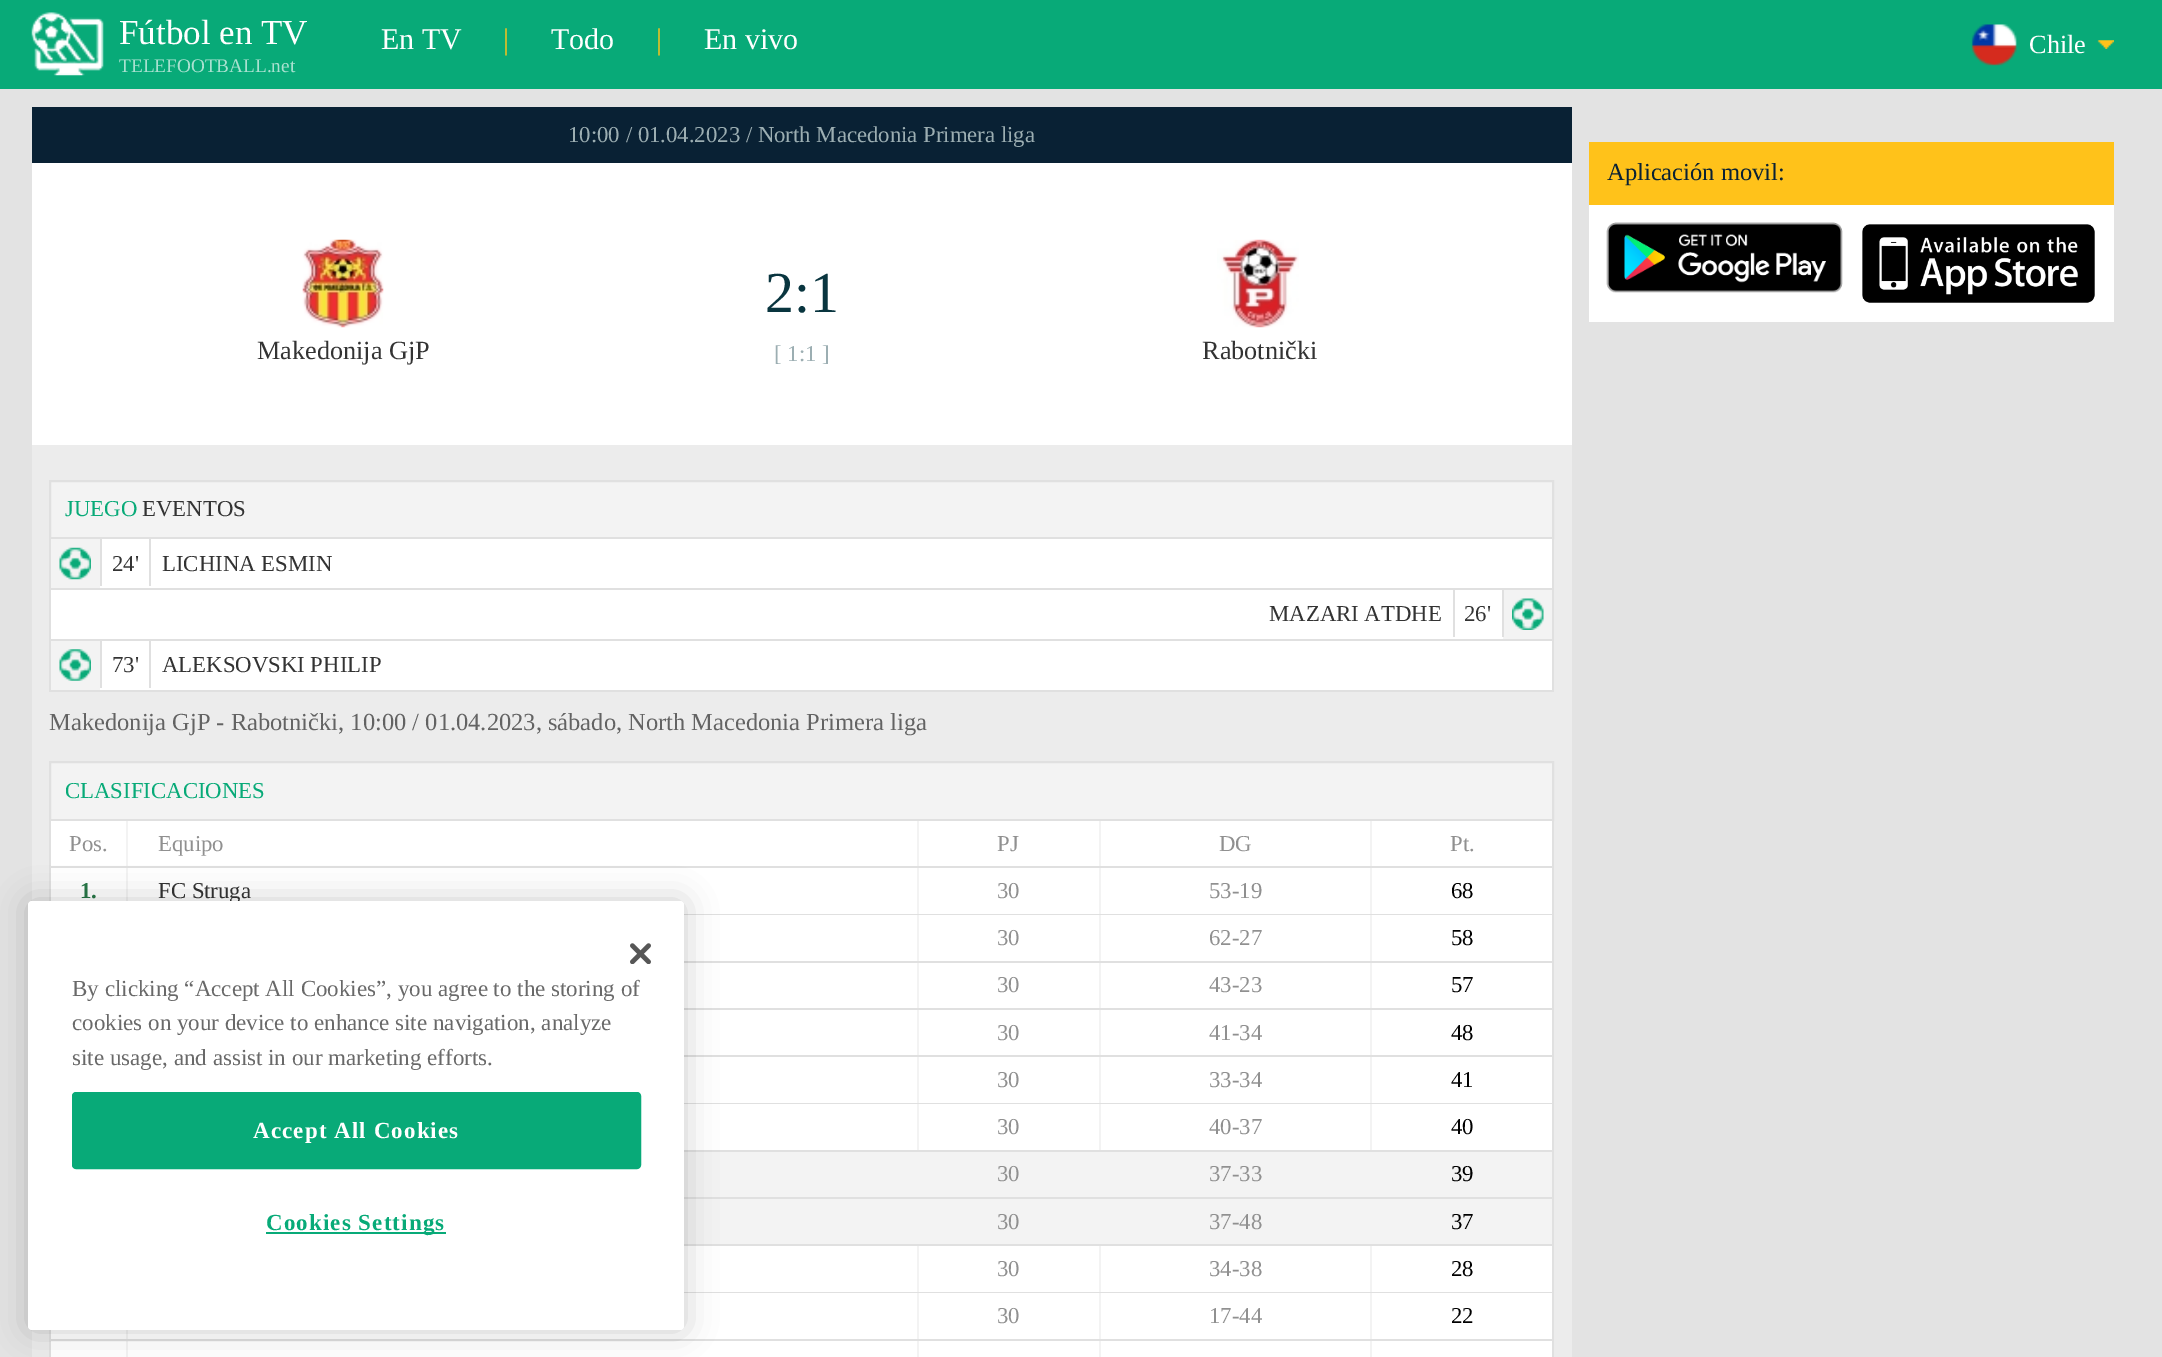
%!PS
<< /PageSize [2162 1357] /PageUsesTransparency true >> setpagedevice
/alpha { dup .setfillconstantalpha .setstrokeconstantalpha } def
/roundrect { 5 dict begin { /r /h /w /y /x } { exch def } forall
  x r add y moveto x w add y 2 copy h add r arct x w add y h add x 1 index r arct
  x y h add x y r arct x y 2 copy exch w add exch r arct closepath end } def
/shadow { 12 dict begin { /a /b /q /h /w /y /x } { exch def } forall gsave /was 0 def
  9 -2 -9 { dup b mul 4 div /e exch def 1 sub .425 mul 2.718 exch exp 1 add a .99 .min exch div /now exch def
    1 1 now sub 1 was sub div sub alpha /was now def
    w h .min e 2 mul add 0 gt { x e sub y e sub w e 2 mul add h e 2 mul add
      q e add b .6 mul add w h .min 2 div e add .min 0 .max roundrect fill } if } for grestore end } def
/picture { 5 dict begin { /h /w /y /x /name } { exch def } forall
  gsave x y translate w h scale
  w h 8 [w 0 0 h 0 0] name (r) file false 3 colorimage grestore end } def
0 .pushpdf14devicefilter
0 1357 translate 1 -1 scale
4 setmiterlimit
0.89 setgray
0 0 2162 1357 rectfill
0.031 0.667 0.471 setrgbcolor
0 0 2162 89 rectfill
(img1.rgb) 31 12 73 64 picture
/LiberationSerif-Regular [35 0 0 -35 0 0] selectfont
1 setgray
119 44 moveto (Fútbol en TV) show
/LiberationSerif-Regular [19.25 0 0 -19.25 0 0] selectfont
0.663 0.882 0.816 setrgbcolor
119 72 moveto (TELEFOOTBALL.net) show
/LiberationSerif-Regular [30 0 0 -30 0 0] selectfont
1 setgray
381 49 moveto (En TV) show
1 0.761 0.102 setrgbcolor
503 49 moveto (|) show
1 setgray
551 49 moveto (Todo) show
1 0.761 0.102 setrgbcolor
656 49 moveto (|) show
1 setgray
704 49 moveto (En vivo) show
(img2.rgb) 1971 24 46 42 picture
(img3.rgb) 2097 40 17 9 picture
/LiberationSerif-Regular [26.25 0 0 -26.25 0 0] selectfont
2029 53 moveto (Chile) show
32 163 1540 282 rectfill
0.035 0.129 0.204 setrgbcolor
32 107 1540 56 rectfill
/LiberationSerif-Regular [22.75 0 0 -22.75 0 0] selectfont
0.612 0.682 0.698 setrgbcolor
568 142 moveto (10:00 / 01.04.2023 / North Macedonia Primera liga) show
(img4.rgb) 302 239 82 89 picture
/LiberationSerif-Regular [26.25 0 0 -26.25 0 0] selectfont
0.2 setgray
257 359 moveto (Makedonija GjP) show
/LiberationSerif-Regular [58 0 0 -58 0 0] selectfont
0.035 0.208 0.247 setrgbcolor
765 312 moveto (2:1) show
/LiberationSerif-Regular [22.75 0 0 -22.75 0 0] selectfont
0.612 0.682 0.698 setrgbcolor
774 361 moveto ([ 1:1 ]) show
(img5.rgb) 1217 239 82 89 picture
/LiberationSerif-Regular [26.25 0 0 -26.25 0 0] selectfont
0.2 setgray
1202 359 moveto (Rabotnički) show
0.925 setgray
32 445 1540 912 rectfill
0.953 setgray
newpath 50 481 moveto 1553 481 lineto 1553 538 lineto 50 538 lineto closepath gsave fill grestore
0.878 setgray
2 setlinewidth
stroke
/LiberationSerif-Regular [22.75 0 0 -22.75 0 0] selectfont
0.031 0.667 0.471 setrgbcolor
65 516 moveto (JUEGO) show
0.2 setgray
142 516 moveto (EVENTOS) show
0.953 setgray
51 539 49 49 rectfill
0.878 setgray
1552 539 2 152 rectfill
49 588 1505 2 rectfill
49 539 2 51 rectfill
(img6.rgb) 59 547 32 33 picture
1 setgray
100 539 1452 49 rectfill
0.2 setgray
112 571 moveto (24') show
0.878 setgray
100 539 2 47 rectfill
0.2 setgray
162 571 moveto (LICHINA ESMIN) show
0.878 setgray
149 539 2 47 rectfill
0.953 setgray
1503 590 49 49 rectfill
0.878 setgray
49 639 1505 2 rectfill
49 590 2 51 rectfill
(img7.rgb) 1512 598 32 32 picture
1 setgray
51 590 1452 49 rectfill
0.2 setgray
1269 621 moveto (MAZARI ATDHE) show
0.878 setgray
1453 590 2 47 rectfill
0.2 setgray
1464 621 moveto (26') show
0.878 setgray
1502 590 2 47 rectfill
0.953 setgray
51 641 49 49 rectfill
0.878 setgray
49 690 1505 2 rectfill
49 641 2 50 rectfill
(img8.rgb) 59 649 32 32 picture
1 setgray
100 641 1452 49 rectfill
0.2 setgray
112 672 moveto (73') show
0.878 setgray
100 641 2 47 rectfill
0.2 setgray
162 672 moveto (ALEKSOVSKI PHILIP) show
0.878 setgray
149 641 2 47 rectfill
/LiberationSerif-Regular [24.5 0 0 -24.5 0 0] selectfont
0.388 setgray
49 730 moveto (Makedonija GjP - Rabotnički, 10:00 / 01.04.2023, sábado, North Macedonia Primera liga) show
0.953 setgray
newpath 50 762 moveto 1553 762 lineto 1553 820 lineto 50 820 lineto closepath gsave fill grestore
0.878 setgray
stroke
/LiberationSerif-Regular [22.75 0 0 -22.75 0 0] selectfont
0.031 0.667 0.471 setrgbcolor
65 798 moveto (CLASIFICACIONES) show
1 setgray
51 821 1501 45 rectfill
0.878 setgray
1552 821 2 536 rectfill
49 866 1505 2 rectfill
49 821 2 80 rectfill
0.953 setgray
126 821 2 45 rectfill
0.565 setgray
69 851 moveto (Pos.) show
158 851 moveto (Equipo) show
0.953 setgray
917 821 2 45 rectfill
0.565 setgray
997 851 moveto (PJ) show
0.953 setgray
1099 821 2 45 rectfill
0.565 setgray
1219 851 moveto (DG) show
0.953 setgray
1370 821 2 45 rectfill
0.565 setgray
1450 851 moveto (Pt.) show
1 setgray
51 868 1501 46 rectfill
0.878 setgray
684 914 870 1 rectfill
0.953 setgray
126 868 2 33 rectfill
/LiberationSerif-Bold [22.75 0 0 -22.75 0 0] selectfont
0.153 0.467 0.278 setrgbcolor
80 898 moveto (1.) show
/LiberationSerif-Regular [22.75 0 0 -22.75 0 0] selectfont
0.2 setgray
158 898 moveto (FC Struga) show
0.953 setgray
917 868 2 46 rectfill
0.565 setgray
997 898 moveto (30) show
0.953 setgray
1099 868 2 46 rectfill
0.565 setgray
1209 898 moveto (53-19) show
0.953 setgray
1370 868 2 46 rectfill
0 setgray
1451 898 moveto (68) show
1 setgray
684 915 868 46 rectfill
0.878 setgray
684 961 870 2 rectfill
0.953 setgray
917 915 2 46 rectfill
0.565 setgray
997 945 moveto (30) show
0.953 setgray
1099 915 2 46 rectfill
0.565 setgray
1209 945 moveto (62-27) show
0.953 setgray
1370 915 2 46 rectfill
0 setgray
1451 945 moveto (58) show
1 setgray
684 963 868 45 rectfill
0.878 setgray
684 1008 870 2 rectfill
0.953 setgray
917 963 2 45 rectfill
0.565 setgray
997 992 moveto (30) show
0.953 setgray
1099 963 2 45 rectfill
0.565 setgray
1209 992 moveto (43-23) show
0.953 setgray
1370 963 2 45 rectfill
0 setgray
1451 992 moveto (57) show
1 setgray
684 1010 868 45 rectfill
0.878 setgray
684 1055 870 2 rectfill
0.953 setgray
917 1010 2 45 rectfill
0.565 setgray
997 1040 moveto (30) show
0.953 setgray
1099 1010 2 45 rectfill
0.565 setgray
1209 1040 moveto (41-34) show
0.953 setgray
1370 1010 2 45 rectfill
0 setgray
1451 1040 moveto (48) show
1 setgray
684 1057 868 46 rectfill
0.878 setgray
684 1103 870 1 rectfill
0.953 setgray
917 1057 2 46 rectfill
0.565 setgray
997 1087 moveto (30) show
0.953 setgray
1099 1057 2 46 rectfill
0.565 setgray
1209 1087 moveto (33-34) show
0.953 setgray
1370 1057 2 46 rectfill
0 setgray
1451 1087 moveto (41) show
1 setgray
684 1104 868 46 rectfill
0.878 setgray
684 1150 870 2 rectfill
0.953 setgray
917 1104 2 46 rectfill
0.565 setgray
997 1134 moveto (30) show
0.953 setgray
1099 1104 2 46 rectfill
0.565 setgray
1209 1134 moveto (40-37) show
0.953 setgray
1370 1104 2 46 rectfill
0 setgray
1451 1134 moveto (40) show
0.953 setgray
684 1152 868 45 rectfill
0.878 setgray
684 1197 870 2 rectfill
0.565 setgray
997 1181 moveto (30) show
1209 1181 moveto (37-33) show
0 setgray
1451 1181 moveto (39) show
0.953 setgray
684 1199 868 45 rectfill
0.878 setgray
684 1244 870 2 rectfill
0.565 setgray
997 1229 moveto (30) show
1209 1229 moveto (37-48) show
0 setgray
1451 1229 moveto (37) show
1 setgray
684 1246 868 46 rectfill
0.878 setgray
684 1292 870 1 rectfill
0.953 setgray
917 1246 2 46 rectfill
0.565 setgray
997 1276 moveto (30) show
0.953 setgray
1099 1246 2 46 rectfill
0.565 setgray
1209 1276 moveto (34-38) show
0.953 setgray
1370 1246 2 46 rectfill
0 setgray
1451 1276 moveto (28) show
1 setgray
51 1293 1501 46 rectfill
0.878 setgray
49 1339 1505 2 rectfill
49 1330 2 27 rectfill
0.953 setgray
917 1293 2 46 rectfill
0.565 setgray
997 1323 moveto (30) show
0.953 setgray
1099 1293 2 46 rectfill
0.565 setgray
1209 1323 moveto (17-44) show
0.953 setgray
1370 1293 2 46 rectfill
0 setgray
1451 1323 moveto (22) show
0.953 setgray
126 1330 2 9 rectfill
1 setgray
51 1341 1501 16 rectfill
0.953 setgray
126 1341 2 16 rectfill
917 1341 2 16 rectfill
1099 1341 2 16 rectfill
1370 1341 2 16 rectfill
1 0.761 0.102 setrgbcolor
1589 142 525 63 rectfill
/LiberationSerif-Regular [24.5 0 0 -24.5 0 0] selectfont
0.035 0.129 0.204 setrgbcolor
1607 180 moveto (Aplicación movil:) show
1 setgray
1589 205 525 117 rectfill
(img9.rgb) 1606 222 237 71 picture
(img10.rgb) 1862 224 233 79 picture
0 setgray
28 901 656 429 4 16 0.2 shadow
1 setgray
28 901 656 429 4 roundrect fill
(img11.rgb) 630 943 21 21 picture
/LiberationSerif-Regular [23 0 0 -23 0 0] selectfont
0.412 setgray
72 996 moveto (By clicking “Accept All Cookies”, you agree to the storing of) show
72 1030 moveto (cookies on your device to enhance site navigation, analyze) show
72 1065 moveto (site usage, and assist in our marketing efforts.) show
0.031 0.667 0.471 setrgbcolor
73 1093 567 75 3 roundrect gsave fill grestore
stroke
/LiberationSerif-Bold [23 0 0 -23 0 0] selectfont
1 setgray
253 1138 moveto 1.1 0 (Accept All Cookies) ashow
0.031 0.667 0.471 setrgbcolor
266 1232 180 2 rectfill
266 1230 moveto 1.1 0 (Cookies Settings) ashow
.poppdf14devicefilter showpage
